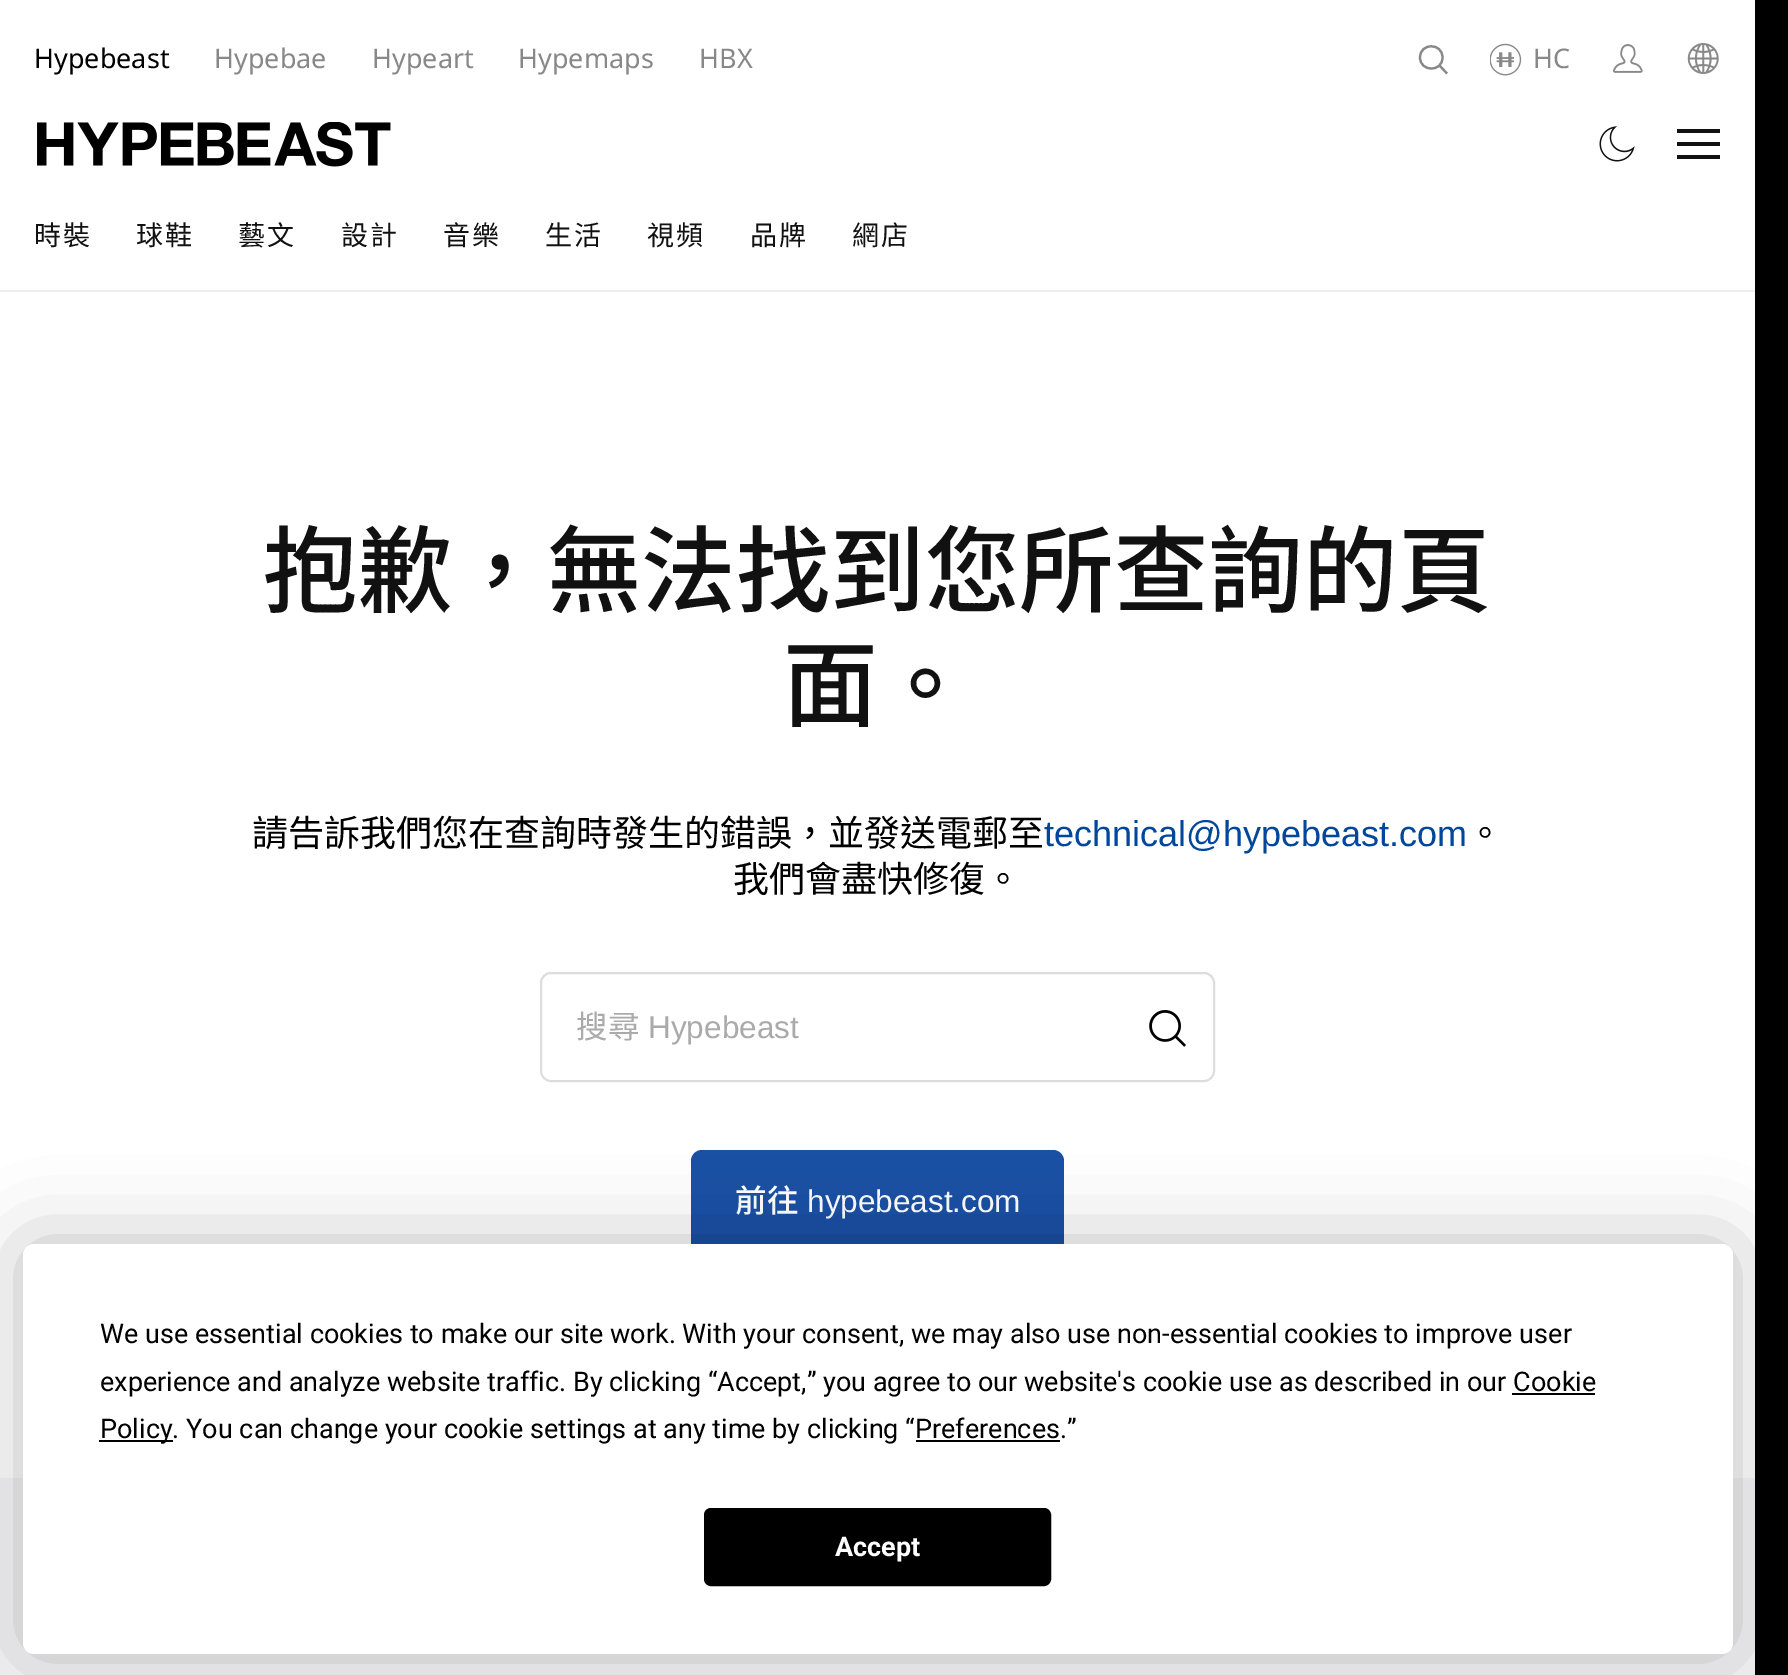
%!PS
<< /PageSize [1788 1675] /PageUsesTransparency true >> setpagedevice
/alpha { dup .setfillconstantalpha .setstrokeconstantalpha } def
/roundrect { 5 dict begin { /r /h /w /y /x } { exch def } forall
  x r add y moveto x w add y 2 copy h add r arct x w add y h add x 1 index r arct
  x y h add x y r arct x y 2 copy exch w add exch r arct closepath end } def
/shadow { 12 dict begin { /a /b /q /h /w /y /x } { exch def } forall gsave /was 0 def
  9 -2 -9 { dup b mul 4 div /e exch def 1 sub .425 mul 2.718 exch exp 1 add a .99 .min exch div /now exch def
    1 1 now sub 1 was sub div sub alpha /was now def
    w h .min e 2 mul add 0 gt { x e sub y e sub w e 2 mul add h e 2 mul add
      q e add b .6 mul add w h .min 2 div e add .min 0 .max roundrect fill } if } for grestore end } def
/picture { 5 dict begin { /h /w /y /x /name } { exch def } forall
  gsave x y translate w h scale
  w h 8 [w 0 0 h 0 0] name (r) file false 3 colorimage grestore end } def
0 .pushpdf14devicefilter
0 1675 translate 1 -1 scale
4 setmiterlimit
0 setgray
0 0 1788 1675 rectfill
1 setgray
0 0 1755 1478 rectfill
/NotoSans-Regular [27 0 0 -27 0 0] selectfont
0 setgray
34 68 moveto (Hypebeast) show
0.533 setgray
214 68 moveto (Hypebae) show
372 68 moveto (Hypeart) show
518 68 moveto (Hypemaps) show
699 68 moveto (HBX) show
0.537 setgray
2.2 setlinewidth
newpath 1442.5 57.5 moveto 1442.5 72.5 1420 72 1420 57.5 curveto 1420 42.5 1442.5 42.5 1442.5 57.5 curveto closepath 1439.5 65.5 moveto 1447 73.5 lineto stroke
(img1.rgb) 1490 43 32 33 picture
0.533 setgray
1533 68 moveto (HC) show
(img2.rgb) 1613 44 30 29 picture
(img3.rgb) 1687 43 32 31 picture
(img4.rgb) 37 122 354 45 picture
(img5.rgb) 1599 126 36 36 picture
0.067 setgray
newpath 1677 129 moveto 1720 129 lineto 1720 133 lineto 1677 133 lineto closepath 1677 142 moveto 1720 142 lineto 1720 146 lineto 1677 146 lineto closepath 1677 155 moveto 1720 155 lineto 1720 159 lineto 1677 159 lineto closepath fill
0.933 setgray
0 290 1755 2 rectfill
/NotoSansTC-Regular [27 0 0 -27 0 0] selectfont
0.067 setgray
34 245 moveto 2 0 (時裝) ashow
136 245 moveto 2 0 (球鞋) ashow
238 245 moveto 2 0 (藝文) ashow
341 245 moveto 2 0 (設計) ashow
443 245 moveto 2 0 (音樂) ashow
545 245 moveto 2 0 (生活) ashow
647 245 moveto 2 0 (視頻) ashow
750 245 moveto 2 0 (品牌) ashow
852 245 moveto 2 0 (網店) ashow
/NotoSansTC-Medium [94.5 0 0 -94.5 0 0] selectfont
263 605 moveto (抱歉，無法找到您所查詢的頁) show
783 719 moveto (面。) show
/NotoSansTC-Regular [36 0 0 -36 0 0] selectfont
0 setgray
252 846 moveto (請告訴我們您在查詢時發生的錯誤，並發送電郵至) show
/LiberationSans-Regular [36 0 0 -36 0 0] selectfont
0 0.275 0.608 setrgbcolor
1044 846 moveto (technical@hypebeast.com) show
/NotoSansTC-Regular [36 0 0 -36 0 0] selectfont
0 setgray
1467 846 moveto (。) show
733 892 moveto (我們會盡快修復。) show
0.867 setgray
2 setlinewidth
541 973 673 108 10 roundrect stroke
/NotoSansTC-Regular [31.5 0 0 -31.5 0 0] selectfont
0.667 setgray
576 1038 moveto (搜尋) show
/LiberationSans-Regular [31.5 0 0 -31.5 0 0] selectfont
648 1038 moveto (Hypebeast) show
(img6.rgb) 1149 1010 37 37 picture
0.102 0.318 0.647 setrgbcolor
691 1150 373 103 11 roundrect fill
/NotoSansTC-Medium [31.5 0 0 -31.5 0 0] selectfont
1 setgray
735 1212 moveto (前往) show
/LiberationSans-Regular [31.5 0 0 -31.5 0 0] selectfont
807 1212 moveto (hypebeast.com) show
0.961 0.961 0.969 setrgbcolor
0 1478 1755 197 rectfill
0 setgray
23 1244 1710 410 11 39.5 0.25 shadow
1 setgray
23 1244 1710 410 11 roundrect fill
/Roboto-Regular [27 0 0 -27 0 0] selectfont
0 setgray
100 1343 moveto (We use essential cookies to make our site work. With your consent, we may also use non-essential cookies to improve user) show
100 1391 moveto (experience and analyze website traffic. By clicking “Accept,” you agree to our website's cookie use as described in our Cookie) show
99 1440 74 2 rectfill
100 1438 moveto (Policy. You can change your cookie settings at any time by clicking “Preferences.”) show
1512 1393 83 2 rectfill
916 1440 144 2 rectfill
705 1509 345 76 6 roundrect gsave fill grestore
stroke
/Roboto-Bold [27 0 0 -27 0 0] selectfont
1 setgray
835 1556 moveto (Accept) show
.poppdf14devicefilter showpage
